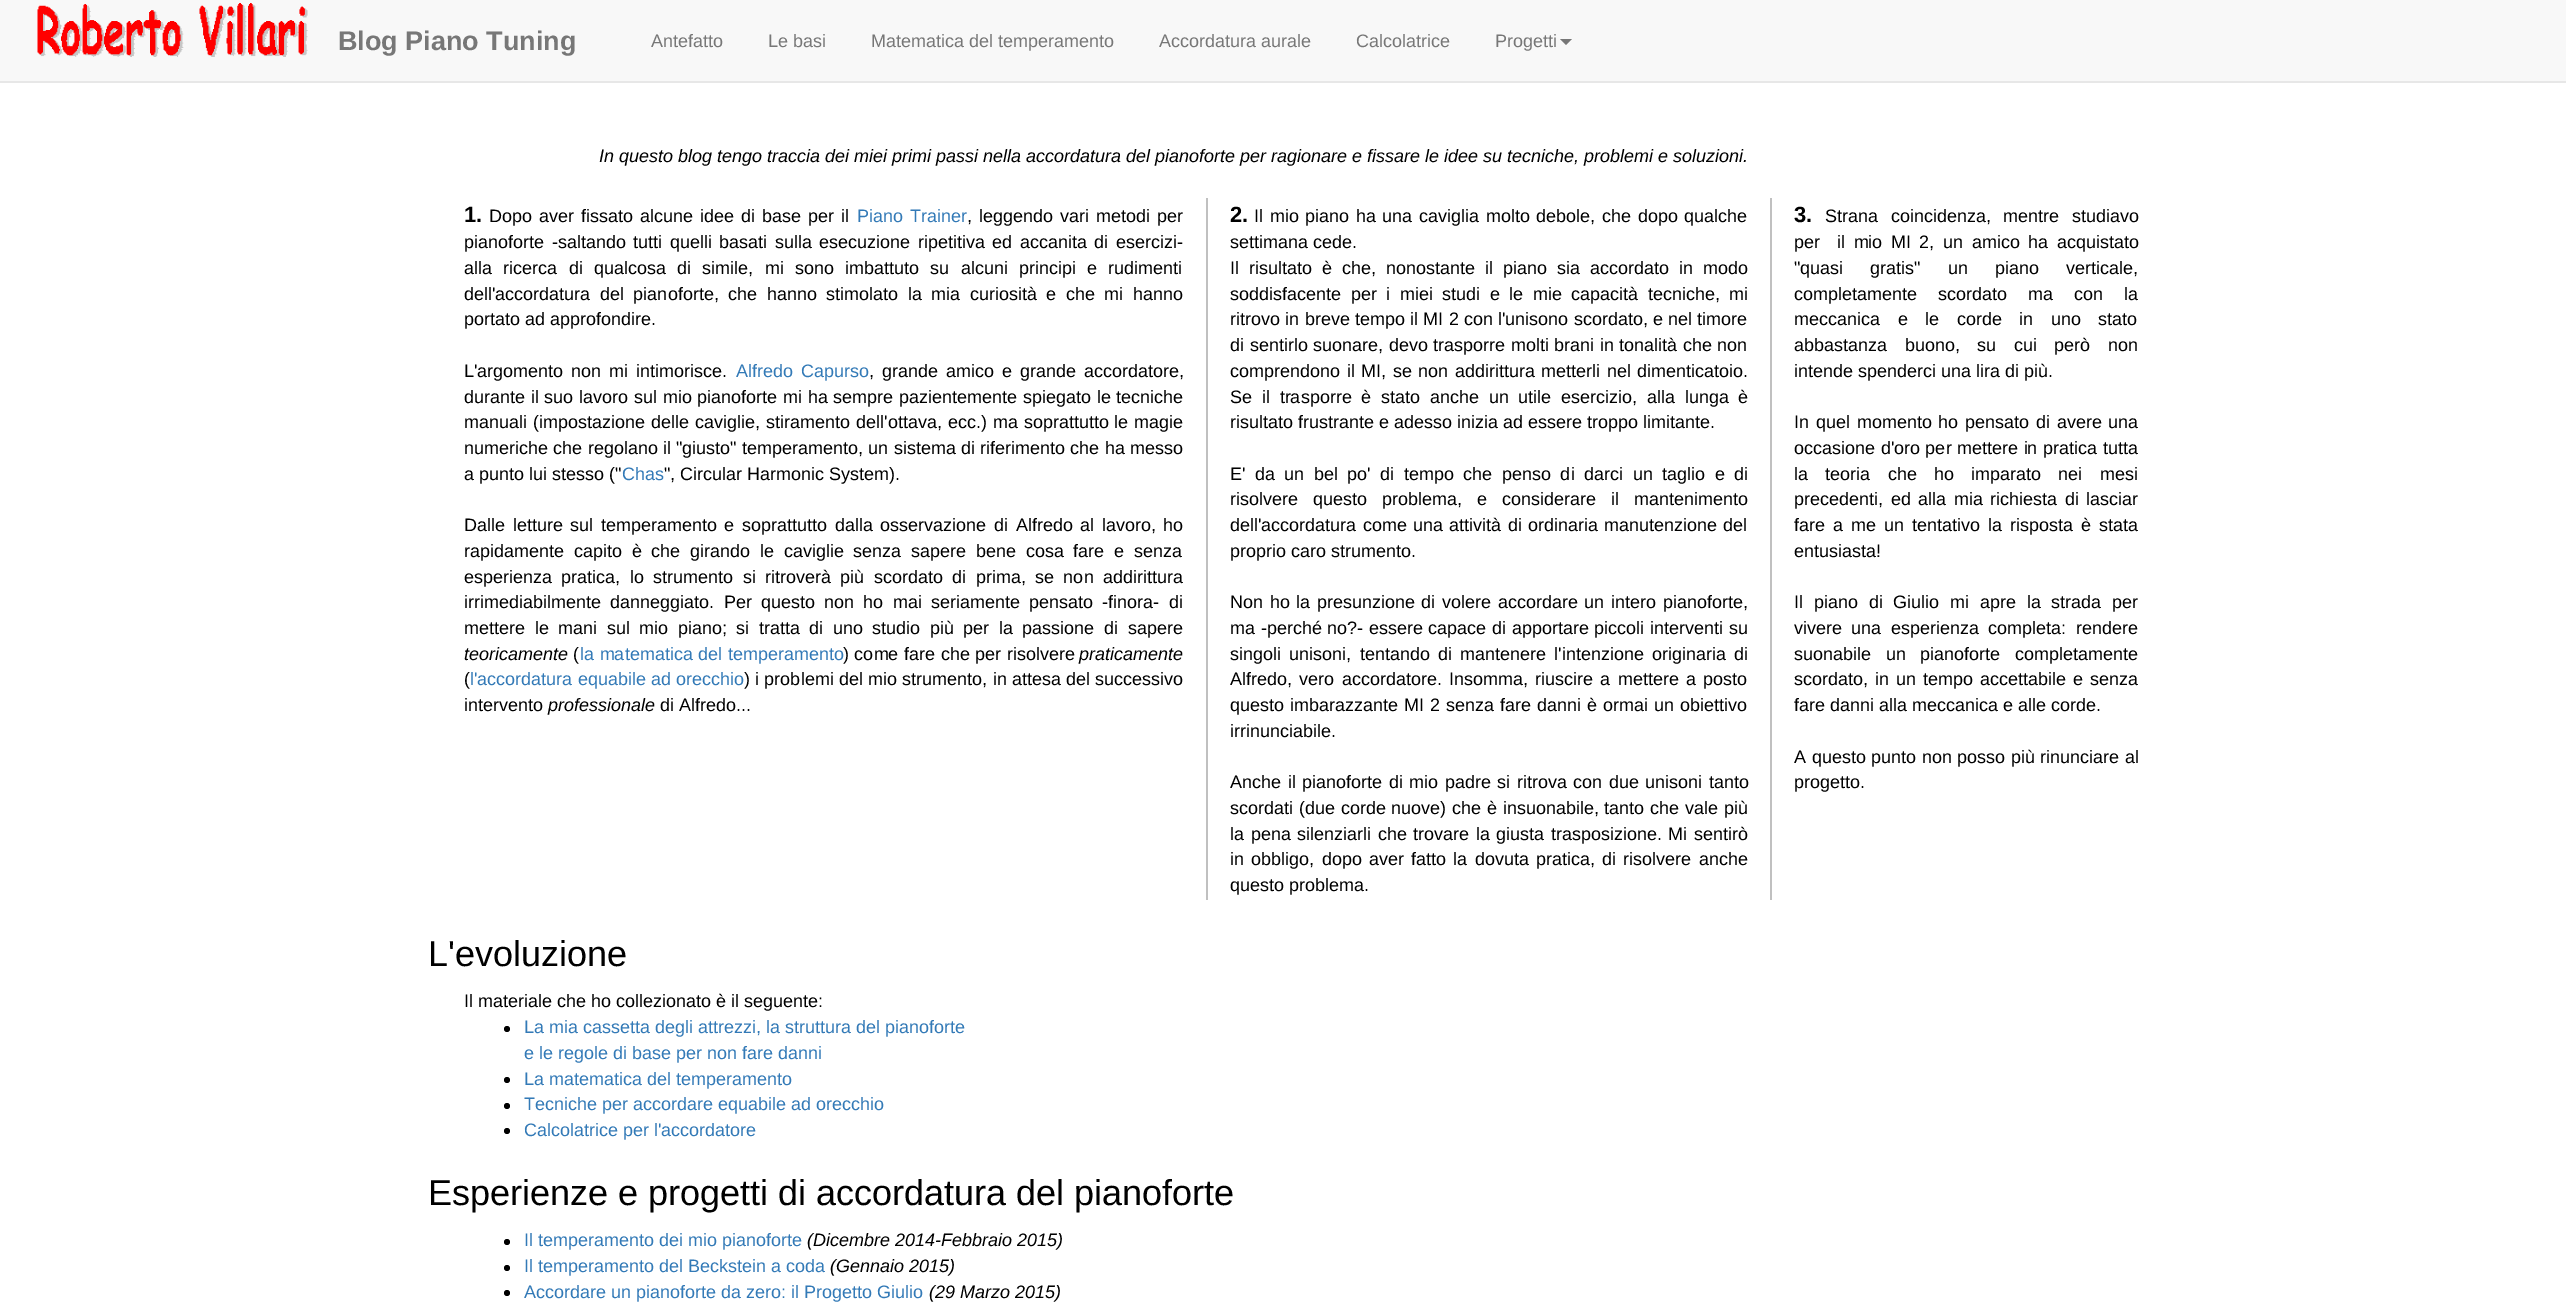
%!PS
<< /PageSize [2566 1316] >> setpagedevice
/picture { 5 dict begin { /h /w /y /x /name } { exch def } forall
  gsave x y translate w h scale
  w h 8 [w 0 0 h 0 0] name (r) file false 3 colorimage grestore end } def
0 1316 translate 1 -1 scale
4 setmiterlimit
1 setgray
0 0 2566 1316 rectfill
0.973 setgray
0 0 2566 81 rectfill
0.906 setgray
0 81 2566 2 rectfill
(img1.rgb) 37 3 271 54 picture
/LiberationSans-Bold [27 0 0 -27 0 0] selectfont
0.467 setgray
338 50 moveto (Blog Piano Tuning) show
/LiberationSans-Regular [18 0 0 -18 0 0] selectfont
651 47 moveto (Antefatto) show
768 47 moveto (Le basi) show
871 47 moveto (Matematica del temperamento) show
1159 47 moveto (Accordatura aurale) show
1356 47 moveto (Calcolatrice) show
1495 47 moveto (Progetti) show
newpath 1560 39 moveto 1572 39 lineto 1566 45 lineto closepath fill
/LiberationSans-Italic [18 0 0 -18 0 0] selectfont
0 setgray
599 162 moveto (In questo blog tengo traccia dei miei primi passi nella accordatura del pianoforte per ragionare e fissare le idee su tecniche, problemi e soluzioni.) show
0.753 setgray
1206 198 2 702 rectfill
/LiberationSans-Bold [22 0 0 -22 0 0] selectfont
0 setgray
464 222 moveto (1.) show
/LiberationSans-Regular [18 0 0 -18 0 0] selectfont
489 222 moveto 2 0 32 (Dopo aver fissato alcune idee di base per il) widthshow
0.2 0.478 0.718 setrgbcolor
857 222 moveto 2 0 32 (Piano Trainer) widthshow
0 setgray
967 222 moveto 2 0 32 (, leggendo vari metodi per) widthshow
464 248 moveto 2.5 0 32 (pianoforte -saltando tutti quelli basati sulla esecuzione ripetitiva ed accanita di esercizi-) widthshow
464 274 moveto 6.25 0 32 (alla ricerca di qualcosa di simile, mi sono imbattuto su alcuni principi e rudimenti) widthshow
464 300 moveto 4.5 0 32 (dell'accordatura del pianoforte, che hanno stimolato la mia curiosità e che mi hanno) widthshow
464 325 moveto (portato ad approfondire.) show
464 377 moveto 3 0 32 (L'argomento non mi intimorisce.) widthshow
0.2 0.478 0.718 setrgbcolor
736 377 moveto 3 0 32 (Alfredo Capurso) widthshow
0 setgray
869 377 moveto 3 0 32 (, grande amico e grande accordatore,) widthshow
464 403 moveto 0.7 0 32 (durante il suo lavoro sul mio pianoforte mi ha sempre pazientemente spiegato le tecniche) widthshow
464 428 moveto 1 0 32 (manuali \(impostazione delle caviglie, stiramento dell'ottava, ecc.\) ma soprattutto) widthshow
1114 428 moveto 1 0 32 (le magie) widthshow
464 454 moveto 0.25 0 32 (numeriche che regolano il "giusto" temperamento, un sistema di riferimento che ha messo) widthshow
464 480 moveto (a punto lui stesso \(") show
0.2 0.478 0.718 setrgbcolor
622 480 moveto (Chas) show
0 setgray
664 480 moveto (", Circular Harmonic System\).) show
464 531 moveto 2.6 0 32 (Dalle letture sul temperamento e soprattutto dalla osservazione di Alfredo al lavoro, ho) widthshow
464 557 moveto 4.75 0 32 (rapidamente capito è che girando le caviglie senza sapere bene cosa fare e senza) widthshow
464 583 moveto 4.4 0 32 (esperienza pratica, lo strumento si ritroverà più scordato di prima, se non addirittura) widthshow
464 608 moveto 4.25 0 32 (irrimediabilmente danneggiato. Per questo non ho mai seriamente pensato -finora- di) widthshow
464 634 moveto 4.5 0 32 (mettere le mani sul mio piano; si tratta di uno studio più per la passione di) widthshow
1128 634 moveto (sapere) show
/LiberationSans-Italic [18 0 0 -18 0 0] selectfont
464 660 moveto (teoricamente) show
/LiberationSans-Regular [18 0 0 -18 0 0] selectfont
573 660 moveto (\() show
0.2 0.478 0.718 setrgbcolor
580 660 moveto 0.5 0 32 (la matematica del temperamento) widthshow
0 setgray
843 660 moveto 0.5 0 32 (\) come fare che per risolvere) widthshow
/LiberationSans-Italic [18 0 0 -18 0 0] selectfont
1079 660 moveto (praticamente) show
/LiberationSans-Regular [18 0 0 -18 0 0] selectfont
464 685 moveto (\() show
0.2 0.478 0.718 setrgbcolor
470 685 moveto 0.25 0 32 (l'accordatura equabile ad orecchio) widthshow
0 setgray
744 685 moveto 0.25 0 32 (\) i problemi del mio strumento, in attesa del successivo) widthshow
464 711 moveto (intervento) show
/LiberationSans-Italic [18 0 0 -18 0 0] selectfont
548 711 moveto (professionale) show
/LiberationSans-Regular [18 0 0 -18 0 0] selectfont
660 711 moveto (di Alfredo...) show
/LiberationSans-Bold [22 0 0 -22 0 0] selectfont
1230 222 moveto (2.) show
/LiberationSans-Regular [18 0 0 -18 0 0] selectfont
1254 222 moveto 1.6 0 32 (Il mio piano ha una caviglia molto debole, che dopo qualche) widthshow
1230 248 moveto (settimana cede.) show
1230 274 moveto 5 0 32 (Il risultato è che, nonostante il piano sia accordato in modo) widthshow
1230 300 moveto 4.5 0 32 (soddisfacente per i miei studi e le mie capacità tecniche, mi) widthshow
1230 325 moveto 0.25 0 32 (ritrovo in breve tempo il MI 2 con l'unisono scordato,) widthshow
1653 325 moveto (e nel timore) show
1230 351 moveto 0.5 0 32 (di sentirlo suonare, devo trasporre molti brani in tonalità che non) widthshow
1230 377 moveto 1.5 0 32 (comprendono il MI, se non addirittura metterli nel dimenticatoio.) widthshow
1230 403 moveto 4.75 0 32 (Se il trasporre è stato anche un utile esercizio, alla lunga è) widthshow
1230 428 moveto (risultato frustrante e adesso inizia ad essere troppo limitante.) show
1230 480 moveto 4.5 0 32 (E' da un bel po' di tempo che penso di darci un taglio e di) widthshow
1230 505 moveto 10 0 32 (risolvere questo problema,) widthshow
1477 505 moveto 10 0 32 (e considerare il mantenimento) widthshow
1230 531 moveto 1.25 0 32 (dell'accordatura come una attività di ordinaria manutenzione del) widthshow
1230 557 moveto (proprio caro strumento.) show
1230 608 moveto 1.6 0 32 (Non ho la presunzione di volere accordare un intero pianoforte,) widthshow
1230 634 moveto 0.6 0 32 (ma -perché no?- essere capace di apportare piccoli interventi su) widthshow
1230 660 moveto 3.25 0 32 (singoli unisoni, tentando di mantenere l'intenzione originaria di) widthshow
1230 685 moveto 2.25 0 32 (Alfredo, vero accordatore. Insomma, riuscire a mettere a posto) widthshow
1230 711 moveto 1 0 32 (questo imbarazzante MI 2 senza fare danni è ormai un obiettivo) widthshow
1230 737 moveto (irrinunciabile.) show
1230 788 moveto 1.5 0 32 (Anche il pianoforte di mio padre si ritrova con due unisoni tanto) widthshow
1230 814 moveto 0.75 0 32 (scordati \(due corde nuove\) che è insuonabile, tanto che vale più) widthshow
1230 840 moveto 1.5 0 32 (la pena silenziarli che trovare la giusta trasposizione. Mi sentirò) widthshow
1230 865 moveto 2.25 0 32 (in obbligo, dopo aver fatto la dovuta pratica, di risolvere anche) widthshow
1230 891 moveto (questo problema.) show
0.753 setgray
1770 198 2 702 rectfill
/LiberationSans-Bold [22 0 0 -22 0 0] selectfont
0 setgray
1794 222 moveto (3.) show
/LiberationSans-Regular [18 0 0 -18 0 0] selectfont
1825 222 moveto 7.5 0 32 (Strana coincidenza, mentre studiavo) widthshow
1794 248 moveto 3.5 0 32 (per  il mio MI 2, un amico ha acquistato) widthshow
1794 274 moveto 22 0 32 ("quasi gratis" un piano verticale,) widthshow
1794 300 moveto 16 0 32 (completamente scordato ma con la) widthshow
1794 325 moveto 12.5 0 32 (meccanica e le corde in uno stato) widthshow
1794 351 moveto 12.5 0 32 (abbastanza buono,) widthshow
1977 351 moveto 12.5 0 32 (su cui però non) widthshow
1794 377 moveto (intende spenderci una lira di più.) show
1794 428 moveto 1.75 0 32 (In quel momento ho pensato di avere una) widthshow
1794 454 moveto 0.5 0 32 (occasione d'oro per mettere in pratica tutta) widthshow
1794 480 moveto 12.25 0 32 (la teoria che ho imparato nei mesi) widthshow
1794 505 moveto 2.5 0 32 (precedenti, ed alla mia richiesta di lasciar) widthshow
1794 531 moveto 3 0 32 (fare a me un tentativo) widthshow
1988 531 moveto 3 0 32 (la risposta è stata) widthshow
1794 557 moveto (entusiasta!) show
1794 608 moveto 5.75 0 32 (Il piano di Giulio mi apre la strada per) widthshow
1794 634 moveto 4.4 0 32 (vivere una esperienza completa: rendere) widthshow
1794 660 moveto 9.5 0 32 (suonabile un pianoforte completamente) widthshow
1794 685 moveto 2 0 32 (scordato, in un tempo accettabile e senza) widthshow
1794 711 moveto (fare danni alla meccanica e alle corde.) show
1794 763 moveto 0.5 0 32 (A questo punto non posso più rinunciare al) widthshow
1794 788 moveto (progetto.) show
/LiberationSans-Regular [36 0 0 -36 0 0] selectfont
428 966 moveto (L'evoluzione) show
/LiberationSans-Regular [18 0 0 -18 0 0] selectfont
464 1007 moveto (Il materiale che ho collezionato è il seguente:) show
newpath 507 1029 3 0 360 arc closepath fill
0.2 0.478 0.718 setrgbcolor
524 1033 moveto (La mia cassetta degli attrezzi, la struttura del pianoforte) show
524 1059 moveto (e le regole di base per non fare danni) show
0 setgray
newpath 507 1080 3 0 360 arc closepath fill
0.2 0.478 0.718 setrgbcolor
524 1085 moveto (La matematica del temperamento) show
0 setgray
newpath 507 1106 3 0 360 arc closepath fill
0.2 0.478 0.718 setrgbcolor
524 1110 moveto (Tecniche per accordare equabile ad orecchio) show
0 setgray
newpath 507 1131 3 0 360 arc closepath fill
0.2 0.478 0.718 setrgbcolor
524 1136 moveto (Calcolatrice per l'accordatore) show
/LiberationSans-Regular [36 0 0 -36 0 0] selectfont
0 setgray
428 1205 moveto (Esperienze e progetti di accordatura del pianoforte) show
newpath 507 1242 3 0 360 arc closepath fill
/LiberationSans-Regular [18 0 0 -18 0 0] selectfont
0.2 0.478 0.718 setrgbcolor
524 1246 moveto (Il temperamento dei mio pianoforte) show
/LiberationSans-Italic [18 0 0 -18 0 0] selectfont
0 setgray
807 1246 moveto (\(Dicembre 2014-Febbraio 2015\)) show
newpath 507 1268 3 0 360 arc closepath fill
/LiberationSans-Regular [18 0 0 -18 0 0] selectfont
0.2 0.478 0.718 setrgbcolor
524 1272 moveto (Il temperamento del Beckstein a coda) show
/LiberationSans-Italic [18 0 0 -18 0 0] selectfont
0 setgray
830 1272 moveto (\(Gennaio 2015\)) show
newpath 507 1293 3 0 360 arc closepath fill
/LiberationSans-Regular [18 0 0 -18 0 0] selectfont
0.2 0.478 0.718 setrgbcolor
524 1298 moveto (Accordare un pianoforte da zero: il Progetto Giulio) show
/LiberationSans-Italic [18 0 0 -18 0 0] selectfont
0 setgray
929 1298 moveto (\(29 Marzo 2015\)) show
showpage
